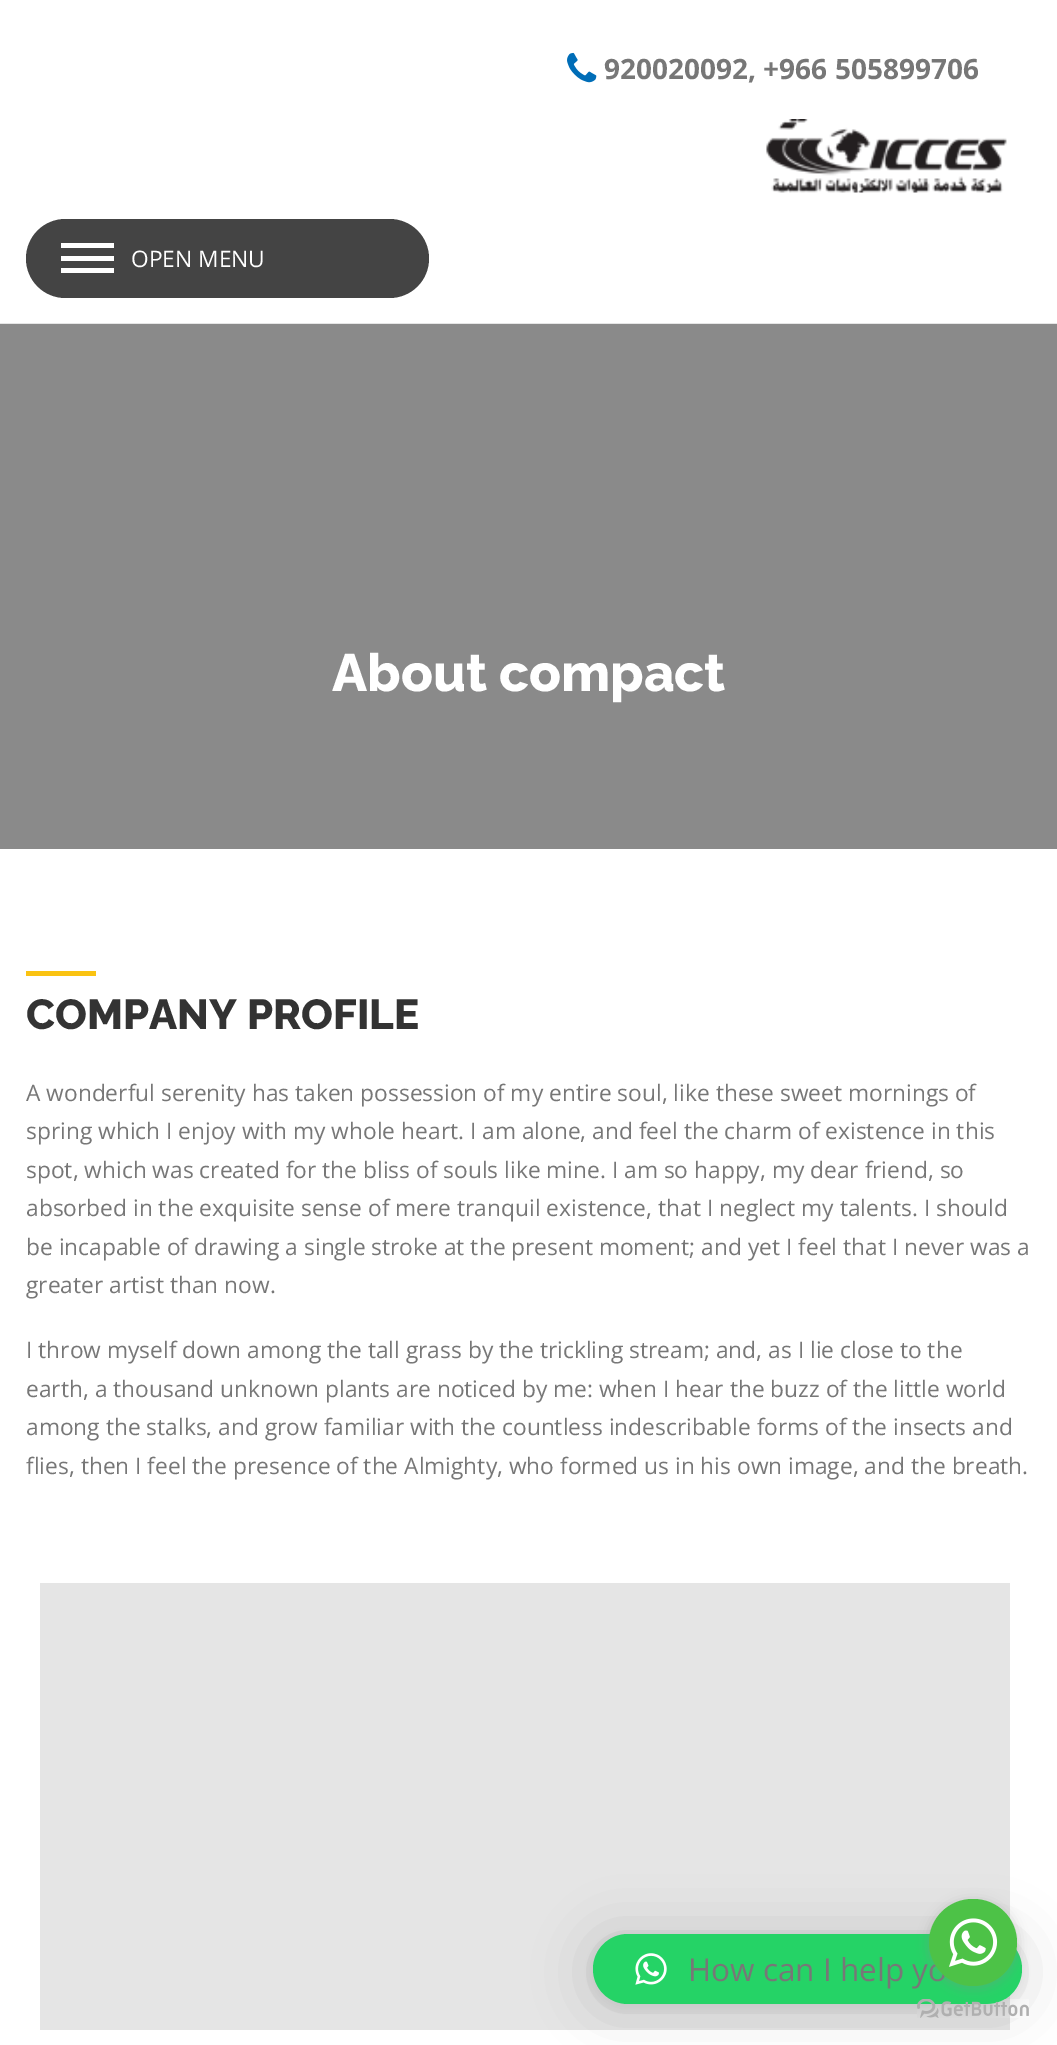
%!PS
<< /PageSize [1057 2045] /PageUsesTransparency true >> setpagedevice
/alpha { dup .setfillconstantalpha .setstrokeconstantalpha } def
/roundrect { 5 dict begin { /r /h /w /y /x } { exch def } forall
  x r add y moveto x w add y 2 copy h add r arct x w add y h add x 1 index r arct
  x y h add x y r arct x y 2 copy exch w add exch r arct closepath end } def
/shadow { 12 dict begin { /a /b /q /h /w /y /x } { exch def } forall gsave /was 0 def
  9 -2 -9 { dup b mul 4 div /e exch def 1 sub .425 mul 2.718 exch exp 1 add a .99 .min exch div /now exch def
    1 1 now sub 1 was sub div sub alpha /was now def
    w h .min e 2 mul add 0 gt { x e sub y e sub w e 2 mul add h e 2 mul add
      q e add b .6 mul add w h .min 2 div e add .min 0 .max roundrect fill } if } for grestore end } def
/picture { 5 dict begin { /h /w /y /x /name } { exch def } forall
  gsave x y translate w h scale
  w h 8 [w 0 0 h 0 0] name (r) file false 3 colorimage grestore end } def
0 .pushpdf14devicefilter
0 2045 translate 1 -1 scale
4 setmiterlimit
1 setgray
0 0 1057 2045 rectfill
(img1.rgb) 567 52 30 31 picture
/OpenSans-Bold [28 0 0 -28 0 0] selectfont
0.467 setgray
604 79 moveto (920020092, +966 505899706) show
(img2.rgb) 766 119 241 74 picture
0.267 setgray
26 219 403 79 39.5 roundrect fill
1 setgray
61 268 53 5 rectfill
61 256 53 5 rectfill
61 243 53 5 rectfill
/OpenSans-Regular [22.75 0 0 -22.75 0 0] selectfont
131 267 moveto (OPEN MENU) show
0.898 setgray
0 323 1057 1 rectfill
0.541 setgray
0 324 1057 525 rectfill
/Raleway-Thin [52.5 0 0 -52.5 0 0] selectfont
1 setgray
332 691 moveto (About compact) show
0.98 0.765 0.071 setrgbcolor
26 971 70 5 rectfill
/Raleway-Thin [42 0 0 -42 0 0] selectfont
0.2 setgray
26 1029 moveto (COMPANY PROFILE) show
/OpenSans-Regular [22.75 0 0 -22.75 0 0] selectfont
0.467 setgray
26 1101 moveto (A wonderful serenity has taken possession of my entire soul, like these sweet mornings of) show
26 1139 moveto (spring which I enjoy with my whole heart. I am alone, and feel the charm of existence in this) show
26 1178 moveto (spot, which was created for the bliss of souls like mine. I am so happy, my dear friend, so) show
26 1216 moveto (absorbed in the exquisite sense of mere tranquil existence, that I neglect my talents. I should) show
26 1255 moveto (be incapable of drawing a single stroke at the present moment; and yet I feel that I never was a) show
26 1293 moveto (greater artist than now.) show
26 1358 moveto (I throw myself down among the tall grass by the trickling stream; and, as I lie close to the) show
26 1397 moveto (earth, a thousand unknown plants are noticed by me: when I hear the buzz of the little world) show
26 1435 moveto (among the stalks, and grow familiar with the countless indescribable forms of the insects and) show
26 1474 moveto (flies, then I feel the presence of the Almighty, who formed us in his own image, and the breath.) show
0.898 setgray
40 1583 970 447 rectfill
0 setgray
593 1937 429 70 35 28 0.16 shadow
593 1936 429 70 35 5 0.06 shadow
0.145 0.827 0.4 setrgbcolor
593 1934 429 70 35 roundrect fill
(img3.rgb) 635 1953 32 32 picture
/OpenSans-Regular [31.5 0 0 -31.5 0 0] selectfont
0.467 setgray
688 1981 moveto (How can I help yo) show
(img5.rgb) 917 1999 112 19 picture
0.533 setgray
929 1901 88 87 43.5 6 0.4 shadow
0.302 0.761 0.278 setrgbcolor
929 1899 88 87 43.5 roundrect fill
(img4.rgb) 949 1918 49 49 picture
.poppdf14devicefilter showpage
